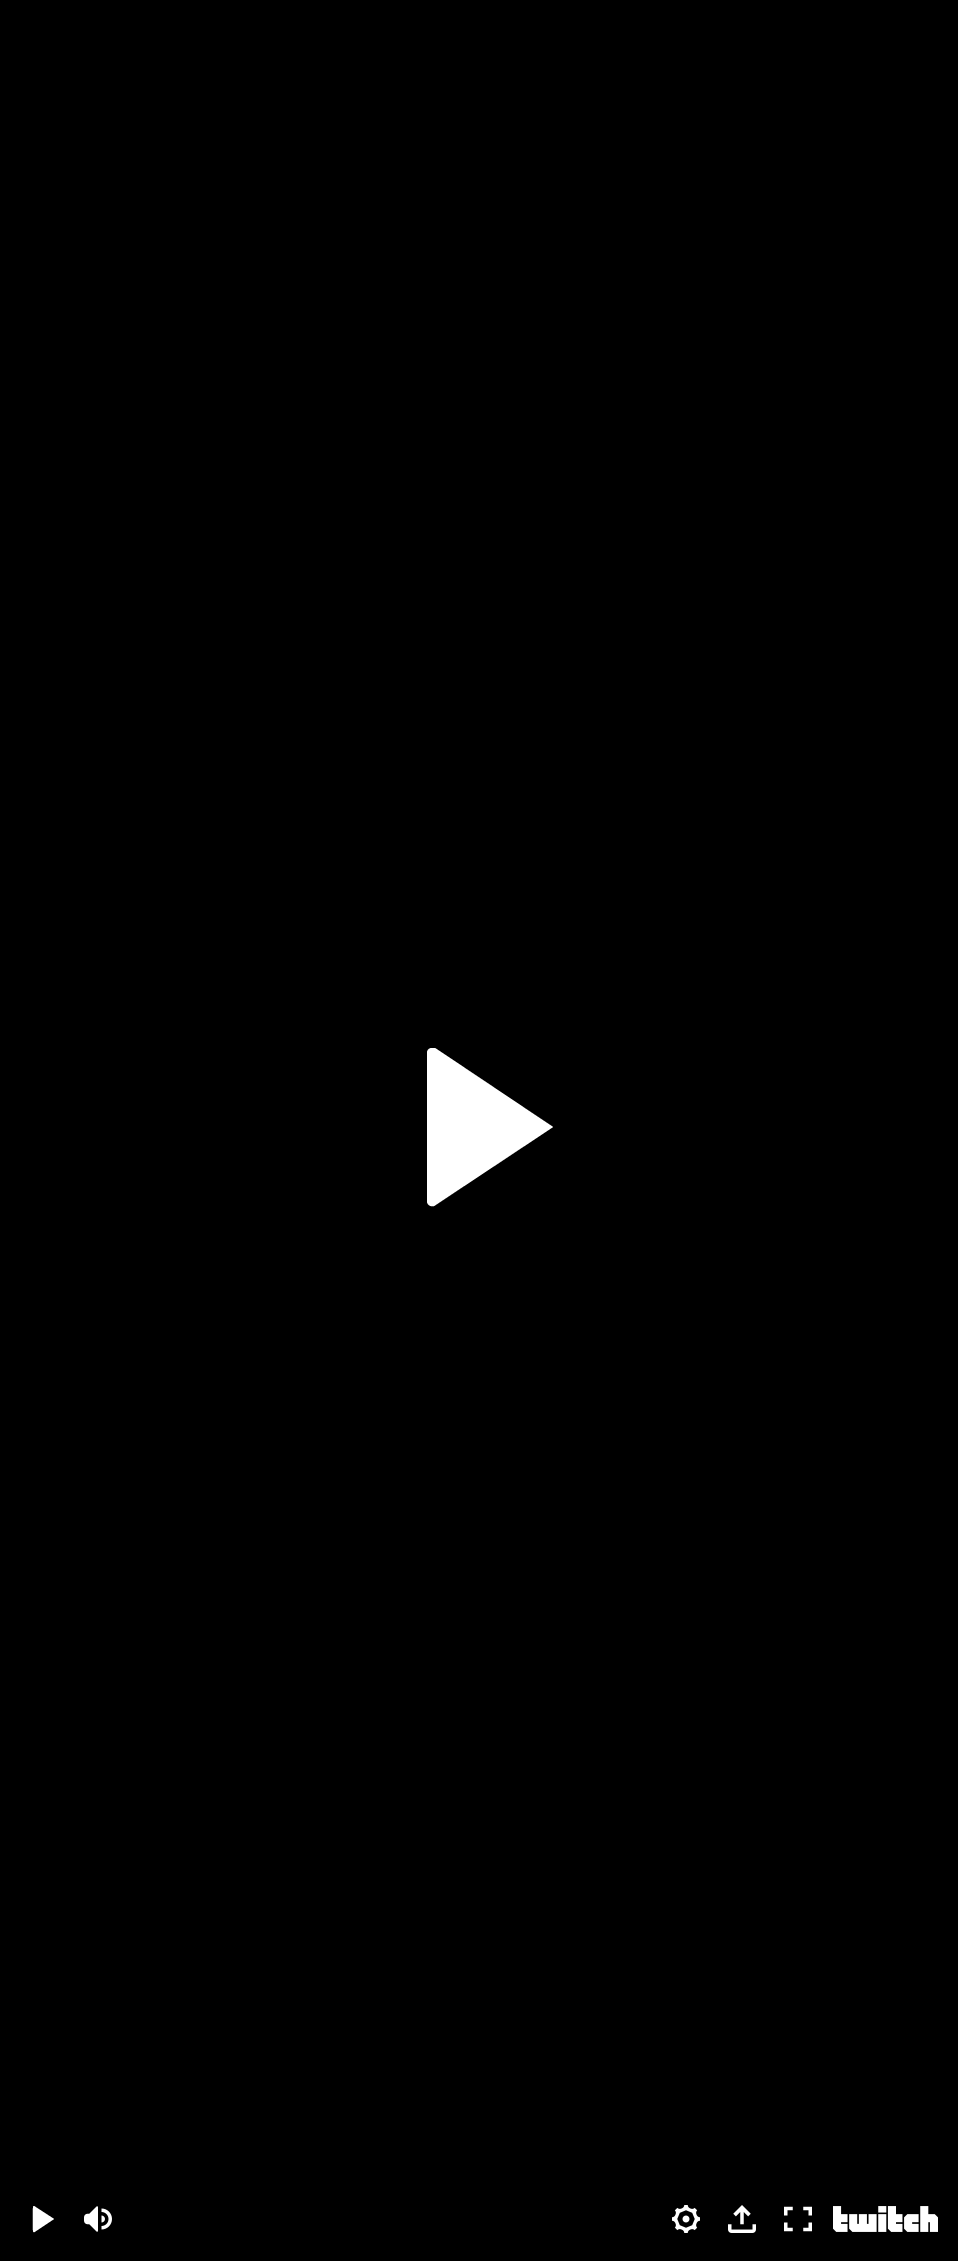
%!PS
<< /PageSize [958 2261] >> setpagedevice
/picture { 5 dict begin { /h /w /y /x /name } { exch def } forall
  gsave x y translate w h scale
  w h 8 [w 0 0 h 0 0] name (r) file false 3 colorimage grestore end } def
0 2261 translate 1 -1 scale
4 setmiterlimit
0 setgray
0 0 958 2261 rectfill
1 setgray
newpath 427 1201 moveto 427 1053 lineto 427 1050 429 1048 432 1048 curveto 435 1048 lineto 553 1127 lineto 434 1206 lineto 431 1207 427 1205 427 1201 curveto closepath fill
newpath 33 2231.5 moveto 33 2208.5 32.5 2206 34 2206 curveto 54 2219 lineto 34.5 2232 lineto 34 2232.5 33.5 2232 33 2231.5 curveto closepath fill
(img1.rgb) 84 2206 28 26 picture
(img2.rgb) 672 2205 28 28 picture
(img3.rgb) 728 2205 28 28 picture
(img4.rgb) 784 2206 28 26 picture
(img5.rgb) 833 2206 105 26 picture
showpage
